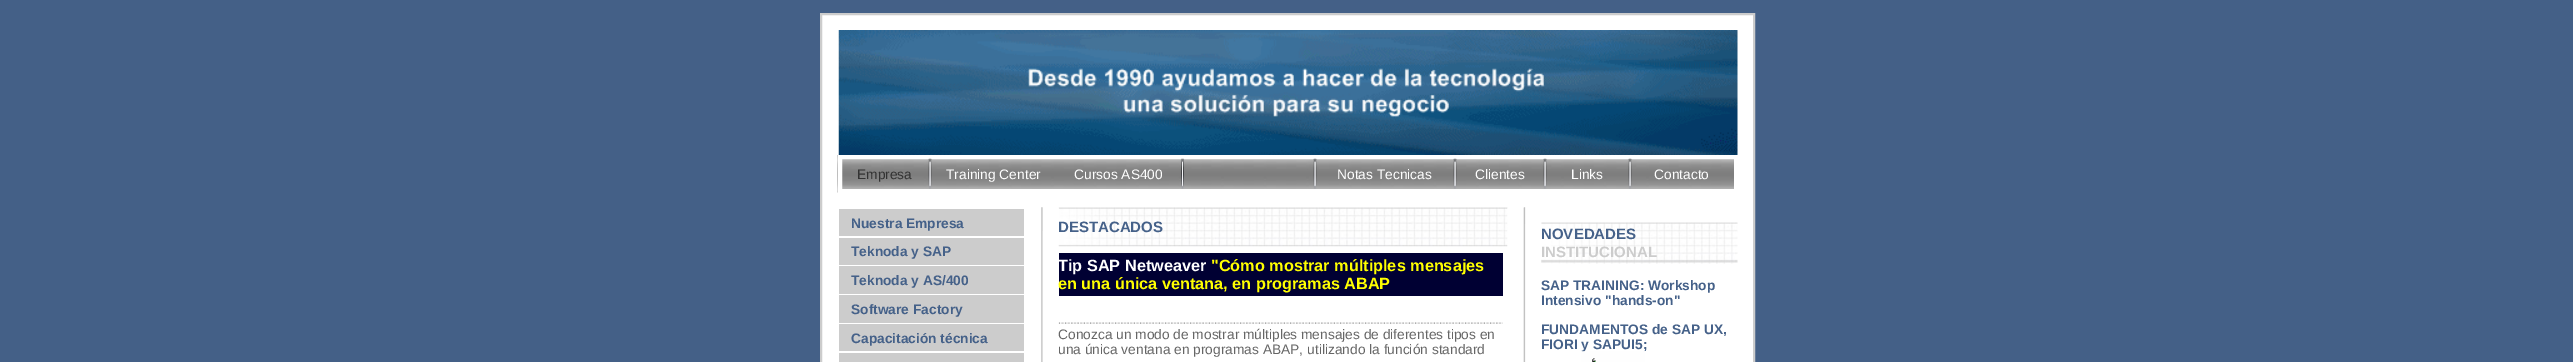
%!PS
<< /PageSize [2573 362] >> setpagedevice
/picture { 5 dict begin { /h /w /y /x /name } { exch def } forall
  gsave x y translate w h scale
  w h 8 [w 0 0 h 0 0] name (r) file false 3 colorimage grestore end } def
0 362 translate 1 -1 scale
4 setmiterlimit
0.267 0.376 0.529 setrgbcolor
0 0 2573 362 rectfill
1 setgray
822 15 931 347 rectfill
0.8 setgray
820.5 13.5 934 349 rectstroke
821.5 14.5 932 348 rectstroke
(img1.rgb) 838 30 900 125 picture
(img2.rgb) 837 155 897 38 picture
1 setgray
4 setlinewidth
840 157 896 34 rectstroke
/LiberationSans-Regular [13.75 0 0 -13.75 0 0] selectfont
0.2 setgray
857 179 moveto (Empresa) show
(img3.rgb) 928 158 4 31 picture
1 setgray
946 179 moveto (Training Center) show
1074 179 moveto (Cursos AS400) show
(img4.rgb) 1181 158 3 31 picture
(img3.rgb) 1313 158 4 31 picture
1337 179 moveto (Notas Tecnicas) show
(img5.rgb) 1453 158 4 31 picture
1475 179 moveto (Clientes) show
(img6.rgb) 1543 158 4 31 picture
1571 179 moveto (Links) show
(img6.rgb) 1628 158 4 31 picture
1654 179 moveto (Contacto) show
0.8 setgray
839 209 185 27 rectfill
/LiberationSans-Bold [13.75 0 0 -13.75 0 0] selectfont
0.271 0.38 0.537 setrgbcolor
851 228 moveto (Nuestra Empresa) show
0.8 setgray
839 238 185 27 rectfill
0.271 0.38 0.537 setrgbcolor
851 256 moveto (Teknoda y SAP) show
0.8 setgray
839 266 185 28 rectfill
0.271 0.38 0.537 setrgbcolor
851 285 moveto (Teknoda y AS/400) show
0.8 setgray
839 295 185 28 rectfill
0.271 0.38 0.537 setrgbcolor
851 314 moveto (Software Factory) show
0.8 setgray
839 324 185 27 rectfill
0.271 0.38 0.537 setrgbcolor
851 343 moveto (Capacitación técnica) show
0.8 setgray
839 353 185 9 rectfill
(img7.rgb) 1041 207 2 155 picture
(img9.rgb) 1058 207 450 40 picture
(img8.rgb) 1041 207 18 24 picture
/LiberationSans-Bold [15 0 0 -15 0 0] selectfont
0.271 0.38 0.537 setrgbcolor
1058 232 moveto (DESTACADOS) show
0 0 0.2 setrgbcolor
1059 253 444 43 rectfill
/LiberationSans-Bold [16.25 0 0 -16.25 0 0] selectfont
1 setgray
1058 271 moveto (Tip SAP Netweaver) show
1 1 0 setrgbcolor
1211 271 moveto ("Cómo mostrar múltiples mensajes) show
1058 289 moveto (en una única ventana, en programas ABAP) show
(img10.rgb) 1058 322 445 2 picture
/LiberationSans-Regular [13.75 0 0 -13.75 0 0] selectfont
0.4 setgray
1058 339 moveto (Conozca un modo de mostrar múltiples mensajes de diferentes tipos en) show
1058 354 moveto (una única ventana en programas ABAP, utilizando la función standard) show
(img11.rgb) 1507 207 19 155 picture
(img13.rgb) 1541 222 197 42 picture
(img12.rgb) 1524 207 18 17 picture
/LiberationSans-Bold [15 0 0 -15 0 0] selectfont
0.271 0.38 0.537 setrgbcolor
1541 239 moveto (NOVEDADES) show
0.8 setgray
1541 257 moveto (INSTITUCIONAL) show
/LiberationSans-Bold [13.75 0 0 -13.75 0 0] selectfont
0.271 0.38 0.537 setrgbcolor
1541 290 moveto (SAP TRAINING: Workshop) show
1541 305 moveto (Intensivo "hands-on") show
1541 334 moveto (FUNDAMENTOS de SAP UX,) show
1541 349 moveto (FIORI y SAPUI5;) show
(img14.rgb) 1581 351 64 11 picture
showpage
